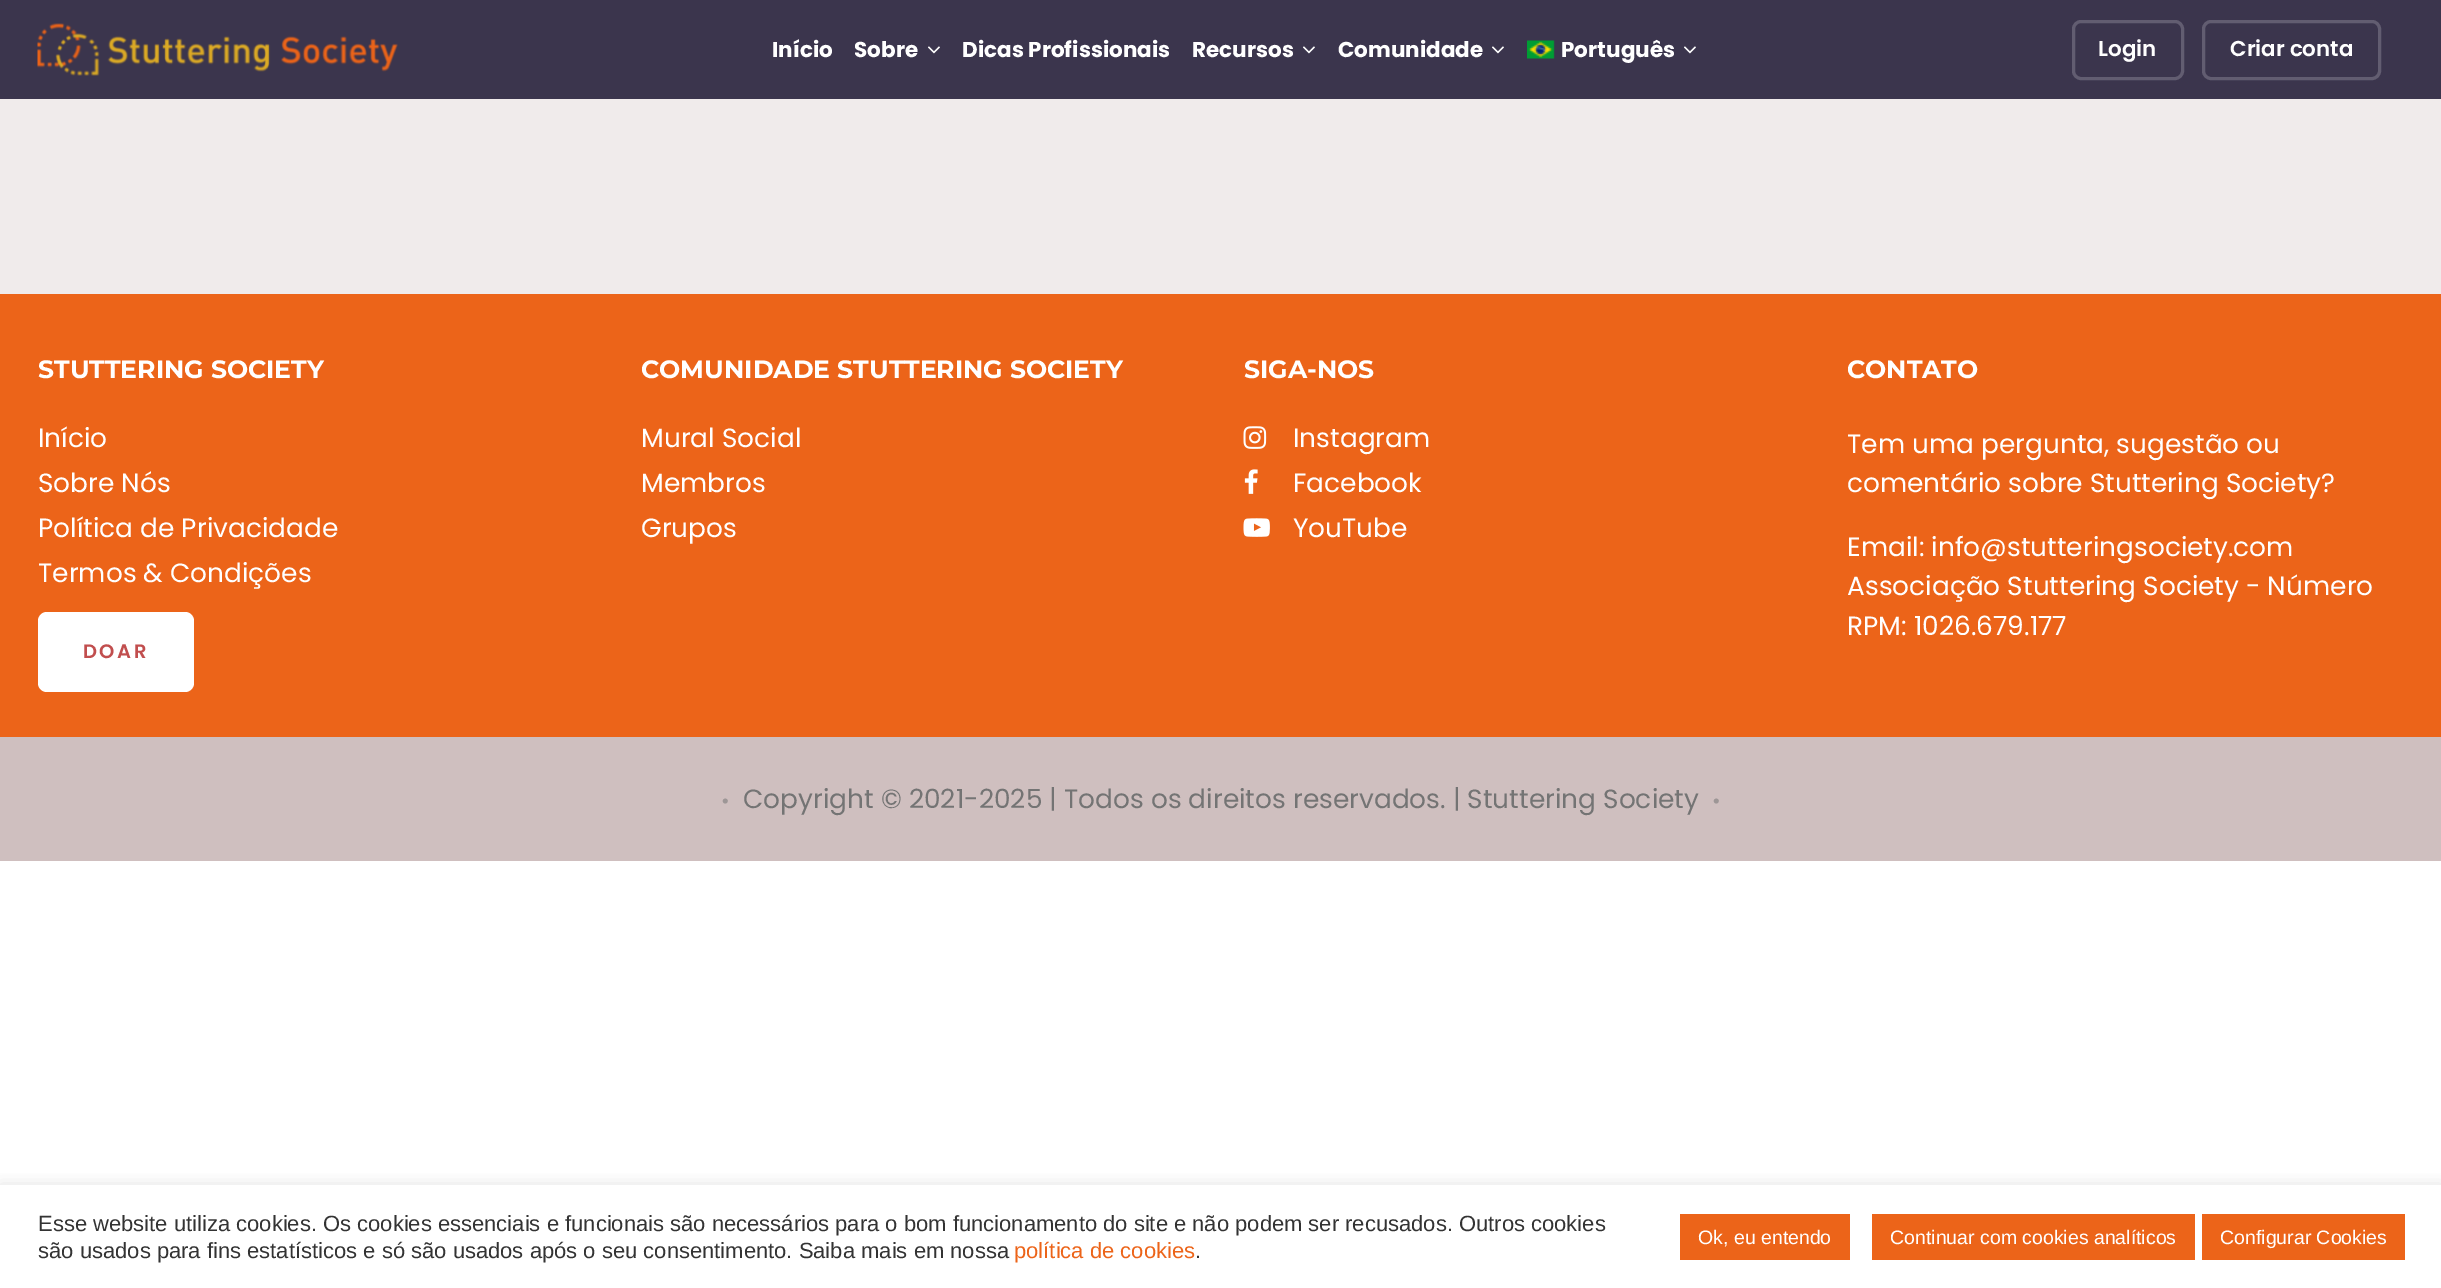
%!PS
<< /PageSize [2441 1288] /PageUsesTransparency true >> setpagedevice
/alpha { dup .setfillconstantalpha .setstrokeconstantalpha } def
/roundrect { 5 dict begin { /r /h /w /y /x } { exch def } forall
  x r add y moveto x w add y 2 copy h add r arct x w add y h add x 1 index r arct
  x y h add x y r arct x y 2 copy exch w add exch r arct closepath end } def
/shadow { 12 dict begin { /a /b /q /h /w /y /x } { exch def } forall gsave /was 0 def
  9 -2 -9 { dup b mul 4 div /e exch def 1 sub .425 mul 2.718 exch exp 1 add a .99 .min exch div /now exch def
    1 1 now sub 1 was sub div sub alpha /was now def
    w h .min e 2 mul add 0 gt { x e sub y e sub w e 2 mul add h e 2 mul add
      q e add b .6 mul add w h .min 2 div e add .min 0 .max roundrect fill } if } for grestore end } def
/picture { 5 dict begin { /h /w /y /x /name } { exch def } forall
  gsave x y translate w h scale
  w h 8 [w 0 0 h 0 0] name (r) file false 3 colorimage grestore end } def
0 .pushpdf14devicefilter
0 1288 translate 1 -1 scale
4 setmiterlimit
1 setgray
0 0 2441 1288 rectfill
0.231 0.208 0.302 setrgbcolor
0 0 2441 99 rectfill
(img1.rgb) 37 23 361 53 picture
/Poppins-Bold [21.5 0 0 -21.5 0 0] selectfont
1 setgray
772 57 moveto (Início) show
854 57 moveto (Sobre) show
(img2.rgb) 928 46 12 8 picture
962 57 moveto (Dicas Profissionais) show
1192 57 moveto (Recursos) show
(img2.rgb) 1303 46 12 8 picture
1338 57 moveto (Comunidade) show
(img2.rgb) 1492 46 12 8 picture
(img3.rgb) 1527 40 28 19 picture
1561 57 moveto (Português) show
(img2.rgb) 1684 46 12 8 picture
0.384 0.365 0.443 setrgbcolor
3 setlinewidth
2073.5 21.5 109 57 7.5 roundrect stroke
/Poppins-SemiBold [21.5 0 0 -21.5 0 0] selectfont
1 setgray
2098 56 moveto (Login) show
0.384 0.365 0.443 setrgbcolor
2203.5 21.5 176 57 7.5 roundrect stroke
1 setgray
2230 56 moveto (Criar conta) show
0.941 0.922 0.922 setrgbcolor
0 99 2441 195 rectfill
0.925 0.392 0.098 setrgbcolor
0 294 2441 443 rectfill
/Montserrat-Bold [25.1 0 0 -25.1 0 0] selectfont
1 setgray
38 378 moveto (STUTTERING SOCIETY) show
/Poppins-Regular [26.4 0 0 -26.4 0 0] selectfont
38 447 moveto (Início) show
38 492 moveto (Sobre Nós) show
38 537 moveto (Política de Privacidade) show
38 582 moveto (Termos & Condições) show
38 612 156 80 9 roundrect fill
/Poppins-SemiBold [19.5 0 0 -19.5 0 0] selectfont
0.757 0.306 0.306 setrgbcolor
83 658 moveto 2.5 0 (DOAR) ashow
/Montserrat-Bold [25.1 0 0 -25.1 0 0] selectfont
1 setgray
641 378 moveto (COMUNIDADE STUTTERING SOCIETY) show
/Poppins-Regular [26.4 0 0 -26.4 0 0] selectfont
641 447 moveto (Mural Social) show
641 492 moveto (Membros) show
641 537 moveto (Grupos) show
/Montserrat-Bold [25.1 0 0 -25.1 0 0] selectfont
1244 378 moveto (SIGA-NOS) show
(img4.rgb) 1243 426 24 23 picture
/Poppins-Regular [26.4 0 0 -26.4 0 0] selectfont
1293 447 moveto (Instagram) show
(img5.rgb) 1244 469 14 25 picture
1293 492 moveto (Facebook) show
(img6.rgb) 1243 518 27 19 picture
1293 537 moveto (YouTube) show
/Montserrat-Bold [25.1 0 0 -25.1 0 0] selectfont
1847 378 moveto (CONTATO) show
/Poppins-Regular [26.4 0 0 -26.4 0 0] selectfont
1847 453 moveto (Tem uma pergunta, sugestão ou) show
1847 492 moveto (comentário sobre Stuttering Society?) show
1847 556 moveto (Email: info@stutteringsociety.com) show
1847 595 moveto (Associação Stuttering Society - Número) show
1847 635 moveto (RPM: 1026.679.177) show
0.812 0.749 0.749 setrgbcolor
0 737 2441 124 rectfill
/Poppins-Regular [21 0 0 -21 0 0] selectfont
0.616 0.588 0.588 setrgbcolor
721 808 moveto (•) show
/Poppins-Regular [26.4 0 0 -26.4 0 0] selectfont
0.455 setgray
743 808 moveto (Copyright © 2021-2025 | Todos os direitos reservados. | Stuttering Society) show
/Poppins-Regular [21 0 0 -21 0 0] selectfont
0.616 0.588 0.588 setrgbcolor
1712 808 moveto (•) show
gsave
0 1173 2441 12 rectclip
0.675 0.671 0.671 setrgbcolor
0 1184 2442 103 0 7.5 0.3 shadow
grestore
/LiberationSans-Regular [22 0 0 -22 0 0] selectfont
0.2 setgray
38 1231 moveto (Esse website utiliza cookies. Os cookies essenciais e funcionais são necessários para o bom funcionamento do site e não podem ser recusados. Outros cookies) show
38 1258 moveto (são usados para fins estatísticos e só são usados após o seu consentimento. Saiba mais em nossa) show
0.925 0.392 0.098 setrgbcolor
1014 1258 moveto (política de cookies) show
0.2 setgray
1195 1258 moveto (.) show
0.925 0.392 0.098 setrgbcolor
1680 1214 170 46 rectfill
/LiberationSans-Regular [19.5 0 0 -19.5 0 0] selectfont
1 setgray
1698 1244 moveto (Ok, eu entendo) show
0.925 0.392 0.098 setrgbcolor
1872 1214 323 46 rectfill
1 setgray
1890 1244 moveto (Continuar com cookies analíticos) show
0.925 0.392 0.098 setrgbcolor
2202 1214 203 46 rectfill
1 setgray
2220 1244 moveto (Configurar Cookies) show
.poppdf14devicefilter showpage
